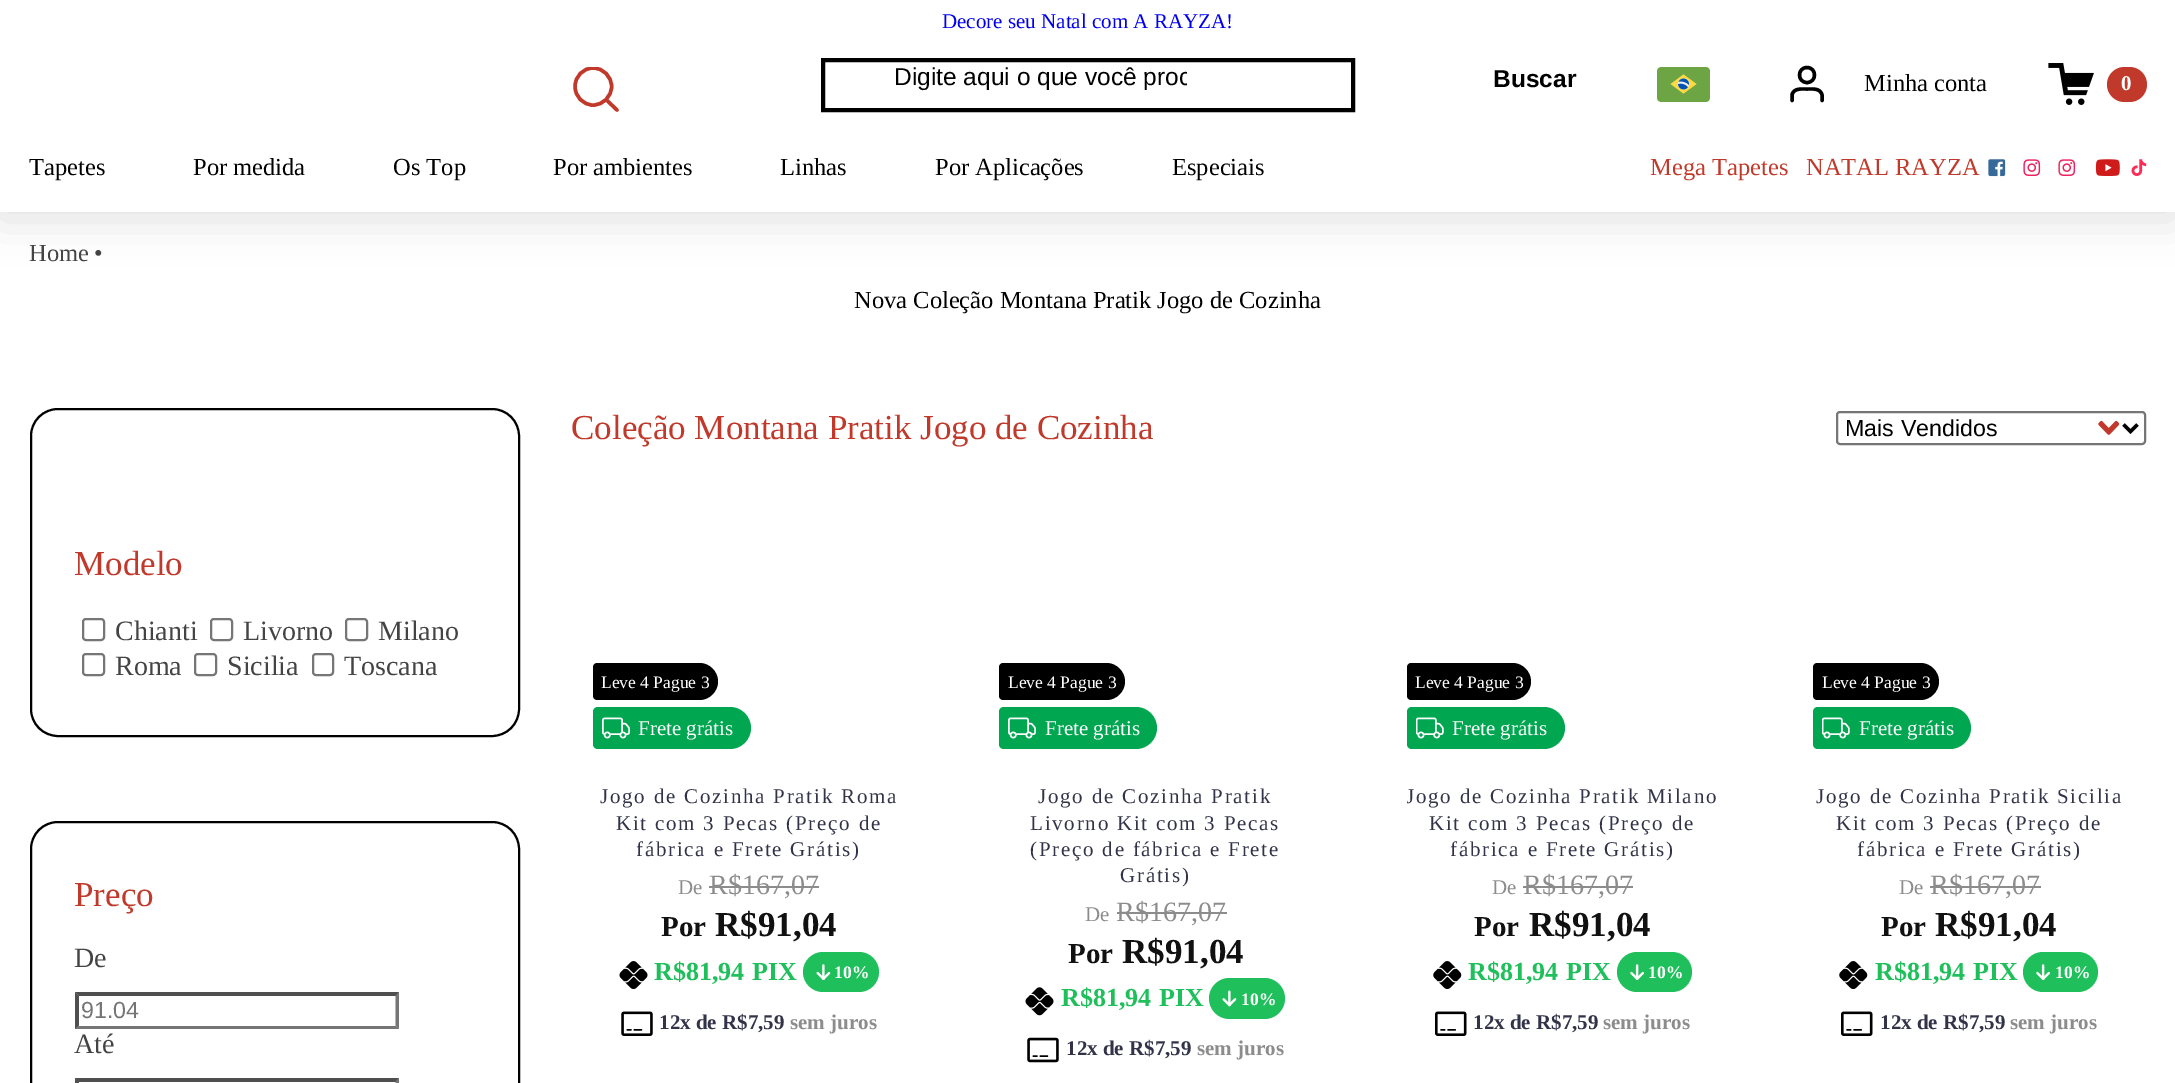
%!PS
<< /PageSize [2175 1083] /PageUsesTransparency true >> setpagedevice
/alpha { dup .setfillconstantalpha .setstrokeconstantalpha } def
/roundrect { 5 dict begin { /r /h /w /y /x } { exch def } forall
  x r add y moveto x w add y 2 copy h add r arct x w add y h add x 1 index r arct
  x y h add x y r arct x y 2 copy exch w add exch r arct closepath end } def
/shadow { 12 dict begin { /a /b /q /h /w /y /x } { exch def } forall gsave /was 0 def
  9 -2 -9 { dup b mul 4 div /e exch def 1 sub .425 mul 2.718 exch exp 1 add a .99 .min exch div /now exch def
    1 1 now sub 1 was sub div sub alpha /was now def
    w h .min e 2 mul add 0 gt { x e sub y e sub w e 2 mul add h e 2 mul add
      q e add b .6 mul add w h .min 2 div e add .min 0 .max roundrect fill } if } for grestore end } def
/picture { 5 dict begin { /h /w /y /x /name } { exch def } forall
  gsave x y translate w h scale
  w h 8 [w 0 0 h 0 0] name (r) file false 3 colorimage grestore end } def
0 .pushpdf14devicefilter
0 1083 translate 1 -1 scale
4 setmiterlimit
1 setgray
0 0 2175 1083 rectfill
0 setgray
0 7 2175 212 0 21 0.12 shadow
1 setgray
0 0 2175 212 rectfill
/LiberationSerif-Regular [21 0 0 -21 0 0] selectfont
0 0 0.933 setrgbcolor
942 28 moveto (Decore seu Natal com A RAYZA!) show
gsave
572 67 48 45 rectclip
0.753 0.224 0.169 setrgbcolor
3.5 setlinewidth
1 setlinecap
1 setlinejoin
newpath 593 105 moveto 603.5 105 611.5 96.5 611.5 86.5 curveto 611.5 76.5 603.5 68 593 68 curveto 583 68 575 76.5 575 86.5 curveto 575 96.5 583 105 593 105 curveto closepath stroke
grestore
0.753 0.224 0.169 setrgbcolor
3.5 setlinewidth
1 setlinecap
1 setlinejoin
newpath 617 110 moveto 607 100.5 lineto stroke
0 setgray
4 setlinewidth
0 setlinecap
0 setlinejoin
823 60 530 50 rectstroke
gsave
894 63 293 28 rectclip
/LiberationSans-Regular [24.5 0 0 -24.5 0 0] selectfont
894 85 moveto (Digite aqui o que você proc) show
grestore
/LiberationSans-Bold [24.5 0 0 -24.5 0 0] selectfont
1493 87 moveto (Buscar) show
(img1.rgb) 1657 67 53 35 picture
3.4 setlinewidth
1 setlinecap
1 setlinejoin
newpath 1807 82.5 moveto 1817 82.5 1817 67.5 1807 67.5 curveto 1797 67.5 1797 82.5 1807 82.5 curveto closepath 1822 100.5 moveto 1822 95 lineto 1820.5 88 1812.5 89 1807 89 curveto 1801.5 89 1793.5 88 1792 95 curveto 1792 100.5 lineto stroke
/LiberationSerif-Regular [24.5 0 0 -24.5 0 0] selectfont
1864 91 moveto (Minha conta) show
(img2.rgb) 2048 63 46 42 picture
0.753 0.224 0.169 setrgbcolor
2107 67 40 35 17.5 roundrect fill
/LiberationSerif-Bold [21 0 0 -21 0 0] selectfont
1 setgray
2121 90 moveto (0) show
/LiberationSerif-Regular [24.5 0 0 -24.5 0 0] selectfont
0 setgray
29 175 moveto (Tapetes) show
193 175 moveto (Por medida) show
393 175 moveto (Os Top) show
553 175 moveto (Por ambientes) show
780 175 moveto (Linhas) show
935 175 moveto (Por Aplicações) show
1172 175 moveto (Especiais) show
0.753 0.224 0.169 setrgbcolor
1650 175 moveto (Mega Tapetes) show
1806 175 moveto (NATAL RAYZA) show
(img3.rgb) 1988 159 18 18 picture
(img4.rgb) 2023 159 18 17 picture
(img4.rgb) 2058 159 18 17 picture
(img5.rgb) 2095 159 25 18 picture
(img6.rgb) 2131 159 16 17 picture
0.267 setgray
29 261 moveto (Home) show
94 261 moveto (•) show
0 setgray
854 308 moveto (Nova Coleção Montana Pratik Jogo de Cozinha) show
2 setlinewidth
0 setlinecap
0 setlinejoin
31 409 488 327 27 roundrect stroke
/LiberationSerif-Regular [35 0 0 -35 0 0] selectfont
0.753 0.224 0.169 setrgbcolor
74 575 moveto (Modelo) show
0.463 setgray
83 619 21 21 3 roundrect stroke
/LiberationSerif-Regular [28 0 0 -28 0 0] selectfont
0.267 setgray
115 640 moveto (Chianti) show
0.463 setgray
211 619 21 21 3 roundrect stroke
0.267 setgray
243 640 moveto (Livorno) show
0.463 setgray
346 619 21 21 3 roundrect stroke
0.267 setgray
378 640 moveto (Milano) show
0.463 setgray
83 654 21 21 3 roundrect stroke
0.267 setgray
115 675 moveto (Roma) show
0.463 setgray
195 654 21 21 3 roundrect stroke
0.267 setgray
227 675 moveto (Sicilia) show
0.463 setgray
313 654 20 21 3 roundrect stroke
0.267 setgray
344 675 moveto (Toscana) show
0 setgray
31 822 488 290 27 roundrect stroke
/LiberationSerif-Regular [35 0 0 -35 0 0] selectfont
0.753 0.224 0.169 setrgbcolor
74 906 moveto (Preço) show
/LiberationSerif-Regular [28 0 0 -28 0 0] selectfont
0.267 setgray
74 967 moveto (De) show
0.31 setgray
newpath 75 992 moveto 399 992 lineto 396 996 lineto 79 996 lineto closepath fill
0.463 setgray
newpath 399 992 moveto 399 1029 lineto 395.5 1025.5 lineto 395.5 996 lineto closepath fill
newpath 399 1029 moveto 75 1029 lineto 79 1026 lineto 396 1026 lineto closepath fill
0.31 setgray
newpath 75 1029 moveto 75 992 lineto 79 996 lineto 79 1025.5 lineto closepath fill
/LiberationSans-Regular [23.25 0 0 -23.25 0 0] selectfont
0.459 setgray
81 1018 moveto (91.04) show
/LiberationSerif-Regular [28 0 0 -28 0 0] selectfont
0.267 setgray
74 1053 moveto (Até) show
0.31 setgray
newpath 75 1078 moveto 399 1078 lineto 396 1082 lineto 79 1082 lineto closepath fill
0.463 setgray
newpath 399 1078 moveto 399 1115 lineto 395.5 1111 lineto 395.5 1081.5 lineto closepath fill
0.31 setgray
newpath 75 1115 moveto 75 1078 lineto 79 1081.5 lineto 79 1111 lineto closepath fill
/LiberationSerif-Regular [35 0 0 -35 0 0] selectfont
0.753 0.224 0.169 setrgbcolor
571 439 moveto (Coleção Montana Pratik Jogo de Cozinha) show
0.463 setgray
1837 412 308 32 3 roundrect stroke
0 setgray
3.5 setlinewidth
newpath 2123.5 424.5 moveto 2130.5 431.5 lineto 2137.5 424.5 lineto stroke
/LiberationSans-Regular [23.25 0 0 -23.25 0 0] selectfont
1845 436 moveto (Mais Vendidos) show
(img7.rgb) 2098 420 21 15 picture
newpath 597 663 moveto 699.5 663 lineto 709.5 663 718 671.5 718 681.5 curveto 718 691.5 709.5 700 699.5 700 curveto 597 700 lineto 595 700 593 698 593 696 curveto 593 667 lineto 593 665 595 663 597 663 curveto closepath fill
/LiberationSerif-Regular [17.5 0 0 -17.5 0 0] selectfont
1 setgray
601 688 moveto (Leve 4 Pague 3) show
0 0.651 0.314 setrgbcolor
newpath 598 707 moveto 730 707 lineto 741.5 707 751 716.5 751 728 curveto 751 739.5 741.5 749 730 749 curveto 598 749 lineto 595 749 593 747 593 744 curveto 593 712 lineto 593 709 595 707 598 707 curveto closepath fill
(img8.rgb) 602 717 28 22 picture
/LiberationSerif-Regular [21 0 0 -21 0 0] selectfont
1 setgray
638 735 moveto (Frete grátis) show
0.196 0.2 0.282 setrgbcolor
600 803 moveto 1.75 0 (Jogo de Cozinha Pratik Roma) ashow
616 830 moveto 1.75 0 (Kit com 3 Pecas \(Preço de) ashow
636 856 moveto 1.75 0 (fábrica e Frete Grátis\)) ashow
0.549 setgray
678 894 moveto (De) show
/LiberationSerif-Regular [28 0 0 -28 0 0] selectfont
709 894 moveto (R$167,07) show
709 886 110 2 rectfill
/LiberationSerif-Bold [29 0 0 -29 0 0] selectfont
0.067 setgray
661 936 moveto (Por) show
/LiberationSerif-Bold [35 0 0 -35 0 0] selectfont
715 936 moveto (R$91,04) show
(img9.rgb) 619 961 29 28 picture
/LiberationSerif-Bold [26 0 0 -26 0 0] selectfont
0.122 0.749 0.357 setrgbcolor
654 980 moveto (R$81,94) show
752 980 moveto (PIX) show
803 952 76 40 20 roundrect fill
(img10.rgb) 816 964 15 16 picture
/LiberationSerif-Bold [17.5 0 0 -17.5 0 0] selectfont
1 setgray
834 978 moveto (10%) show
(img11.rgb) 621 1011 32 25 picture
/LiberationSerif-Bold [21 0 0 -21 0 0] selectfont
0.196 0.2 0.282 setrgbcolor
659 1029 moveto (12x de R$7,59) show
0.549 setgray
790 1029 moveto (sem juros) show
0 setgray
newpath 1003 663 moveto 1106.5 663 lineto 1116.5 663 1125 671.5 1125 681.5 curveto 1125 691.5 1116.5 700 1106.5 700 curveto 1003 700 lineto 1001 700 999 698 999 696 curveto 999 667 lineto 999 665 1001 663 1003 663 curveto closepath fill
/LiberationSerif-Regular [17.5 0 0 -17.5 0 0] selectfont
1 setgray
1008 688 moveto (Leve 4 Pague 3) show
0 0.651 0.314 setrgbcolor
newpath 1004 707 moveto 1136 707 lineto 1147.5 707 1157 716.5 1157 728 curveto 1157 739.5 1147.5 749 1136 749 curveto 1004 749 lineto 1001 749 999 747 999 744 curveto 999 712 lineto 999 709 1001 707 1004 707 curveto closepath fill
(img8.rgb) 1008 717 28 22 picture
/LiberationSerif-Regular [21 0 0 -21 0 0] selectfont
1 setgray
1045 735 moveto (Frete grátis) show
0.196 0.2 0.282 setrgbcolor
1038 803 moveto 1.75 0 (Jogo de Cozinha Pratik) ashow
1030 830 moveto 1.75 0 (Livorno Kit com 3 Pecas) ashow
1030 856 moveto 1.75 0 (\(Preço de fábrica e Frete) ashow
1120 882 moveto 1.75 0 (Grátis\)) ashow
0.549 setgray
1085 921 moveto (De) show
/LiberationSerif-Regular [28 0 0 -28 0 0] selectfont
1116 921 moveto (R$167,07) show
1117 912 110 2 rectfill
/LiberationSerif-Bold [29 0 0 -29 0 0] selectfont
0.067 setgray
1068 963 moveto (Por) show
/LiberationSerif-Bold [35 0 0 -35 0 0] selectfont
1122 963 moveto (R$91,04) show
(img12.rgb) 1025 987 29 29 picture
/LiberationSerif-Bold [26 0 0 -26 0 0] selectfont
0.122 0.749 0.357 setrgbcolor
1061 1006 moveto (R$81,94) show
1159 1006 moveto (PIX) show
1209 978 76 41 20.5 roundrect fill
(img13.rgb) 1222 990 15 17 picture
/LiberationSerif-Bold [17.5 0 0 -17.5 0 0] selectfont
1 setgray
1241 1005 moveto (10%) show
(img14.rgb) 1027 1037 32 26 picture
/LiberationSerif-Bold [21 0 0 -21 0 0] selectfont
0.196 0.2 0.282 setrgbcolor
1066 1055 moveto (12x de R$7,59) show
0.549 setgray
1197 1055 moveto (sem juros) show
0 setgray
newpath 1411 663 moveto 1512.5 663 lineto 1522.5 663 1531 671.5 1531 681.5 curveto 1531 691.5 1522.5 700 1512.5 700 curveto 1411 700 lineto 1409 700 1407 698 1407 696 curveto 1407 667 lineto 1407 665 1409 663 1411 663 curveto closepath fill
/LiberationSerif-Regular [17.5 0 0 -17.5 0 0] selectfont
1 setgray
1415 688 moveto (Leve 4 Pague 3) show
0 0.651 0.314 setrgbcolor
newpath 1412 707 moveto 1544 707 lineto 1555.5 707 1565 716.5 1565 728 curveto 1565 739.5 1555.5 749 1544 749 curveto 1412 749 lineto 1409 749 1407 747 1407 744 curveto 1407 712 lineto 1407 709 1409 707 1412 707 curveto closepath fill
(img15.rgb) 1416 717 28 22 picture
/LiberationSerif-Regular [21 0 0 -21 0 0] selectfont
1 setgray
1452 735 moveto (Frete grátis) show
gsave
1407 784 312 79 rectclip
0.196 0.2 0.282 setrgbcolor
1406 803 moveto 1.75 0 (Jogo de Cozinha Pratik Milano) ashow
grestore
0.196 0.2 0.282 setrgbcolor
1429 830 moveto 1.75 0 (Kit com 3 Pecas \(Preço de) ashow
1450 856 moveto 1.75 0 (fábrica e Frete Grátis\)) ashow
0.549 setgray
1492 894 moveto (De) show
/LiberationSerif-Regular [28 0 0 -28 0 0] selectfont
1523 894 moveto (R$167,07) show
1523 886 110 2 rectfill
/LiberationSerif-Bold [29 0 0 -29 0 0] selectfont
0.067 setgray
1474 936 moveto (Por) show
/LiberationSerif-Bold [35 0 0 -35 0 0] selectfont
1529 936 moveto (R$91,04) show
(img16.rgb) 1433 961 29 28 picture
/LiberationSerif-Bold [26 0 0 -26 0 0] selectfont
0.122 0.749 0.357 setrgbcolor
1468 980 moveto (R$81,94) show
1566 980 moveto (PIX) show
1617 952 75 40 20 roundrect fill
(img17.rgb) 1630 964 14 16 picture
/LiberationSerif-Bold [17.5 0 0 -17.5 0 0] selectfont
1 setgray
1648 978 moveto (10%) show
(img18.rgb) 1435 1011 32 25 picture
/LiberationSerif-Bold [21 0 0 -21 0 0] selectfont
0.196 0.2 0.282 setrgbcolor
1473 1029 moveto (12x de R$7,59) show
0.549 setgray
1603 1029 moveto (sem juros) show
0 setgray
newpath 1817 663 moveto 1920.5 663 lineto 1930.5 663 1939 671.5 1939 681.5 curveto 1939 691.5 1930.5 700 1920.5 700 curveto 1817 700 lineto 1815 700 1813 698 1813 696 curveto 1813 667 lineto 1813 665 1815 663 1817 663 curveto closepath fill
/LiberationSerif-Regular [17.5 0 0 -17.5 0 0] selectfont
1 setgray
1822 688 moveto (Leve 4 Pague 3) show
0 0.651 0.314 setrgbcolor
newpath 1818 707 moveto 1950 707 lineto 1961.5 707 1971 716.5 1971 728 curveto 1971 739.5 1961.5 749 1950 749 curveto 1818 749 lineto 1815 749 1813 747 1813 744 curveto 1813 712 lineto 1813 709 1815 707 1818 707 curveto closepath fill
(img15.rgb) 1822 717 28 22 picture
/LiberationSerif-Regular [21 0 0 -21 0 0] selectfont
1 setgray
1859 735 moveto (Frete grátis) show
0.196 0.2 0.282 setrgbcolor
1816 803 moveto 1.75 0 (Jogo de Cozinha Pratik Sicilia) ashow
1836 830 moveto 1.75 0 (Kit com 3 Pecas \(Preço de) ashow
1857 856 moveto 1.75 0 (fábrica e Frete Grátis\)) ashow
0.549 setgray
1899 894 moveto (De) show
/LiberationSerif-Regular [28 0 0 -28 0 0] selectfont
1930 894 moveto (R$167,07) show
1930 886 111 2 rectfill
/LiberationSerif-Bold [29 0 0 -29 0 0] selectfont
0.067 setgray
1881 936 moveto (Por) show
/LiberationSerif-Bold [35 0 0 -35 0 0] selectfont
1935 936 moveto (R$91,04) show
(img16.rgb) 1839 961 29 28 picture
/LiberationSerif-Bold [26 0 0 -26 0 0] selectfont
0.122 0.749 0.357 setrgbcolor
1875 980 moveto (R$81,94) show
1973 980 moveto (PIX) show
2023 952 75 40 20 roundrect fill
(img17.rgb) 2036 964 14 16 picture
/LiberationSerif-Bold [17.5 0 0 -17.5 0 0] selectfont
1 setgray
2055 978 moveto (10%) show
(img18.rgb) 1841 1011 32 25 picture
/LiberationSerif-Bold [21 0 0 -21 0 0] selectfont
0.196 0.2 0.282 setrgbcolor
1880 1029 moveto (12x de R$7,59) show
0.549 setgray
2010 1029 moveto (sem juros) show
.poppdf14devicefilter showpage
